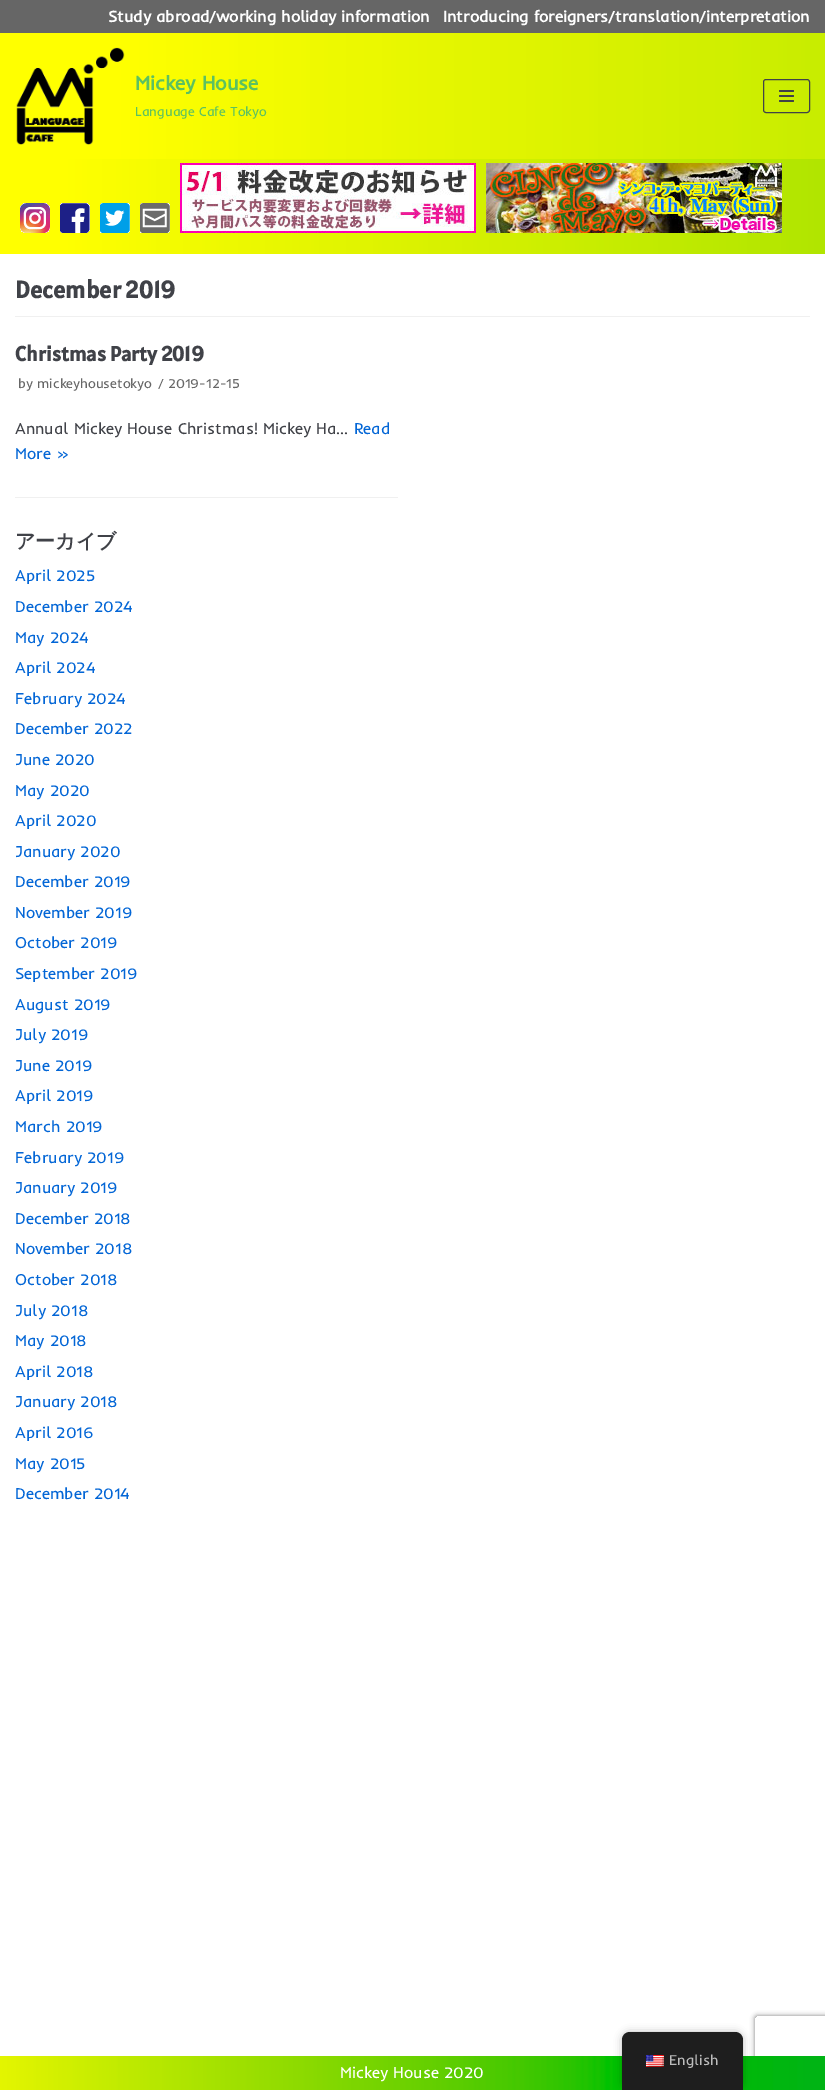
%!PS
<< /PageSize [825 2090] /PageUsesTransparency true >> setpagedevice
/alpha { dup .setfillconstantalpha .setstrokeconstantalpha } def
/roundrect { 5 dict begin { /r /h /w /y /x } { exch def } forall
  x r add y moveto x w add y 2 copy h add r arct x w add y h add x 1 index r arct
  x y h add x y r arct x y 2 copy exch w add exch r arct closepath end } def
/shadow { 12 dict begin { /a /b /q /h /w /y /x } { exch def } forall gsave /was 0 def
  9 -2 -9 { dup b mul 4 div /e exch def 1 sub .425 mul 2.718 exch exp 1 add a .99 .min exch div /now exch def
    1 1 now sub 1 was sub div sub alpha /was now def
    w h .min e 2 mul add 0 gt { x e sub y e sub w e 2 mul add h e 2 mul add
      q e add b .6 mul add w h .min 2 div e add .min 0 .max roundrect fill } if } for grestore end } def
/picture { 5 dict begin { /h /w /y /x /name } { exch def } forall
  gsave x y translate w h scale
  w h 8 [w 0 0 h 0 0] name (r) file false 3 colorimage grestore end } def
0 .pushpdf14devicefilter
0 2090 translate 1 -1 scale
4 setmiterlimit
1 setgray
0 0 825 2090 rectfill
0.4 setgray
0 0 825 33 rectfill
/Inder-Bold [16 0 0 -16 0 0] selectfont
1 setgray
108 22 moveto (Study abroad/working holiday information) show
443 22 moveto (Introducing foreigners/translation/interpretation) show
(img1.rgb) 0 33 825 126 picture
(img2.rgb) 16 47 109 98 picture
/Inder-Bold [20 0 0 -20 0 0] selectfont
0.361 0.757 0.38 setrgbcolor
135 90 moveto (Mickey House) show
/Inder-Regular [13.25 0 0 -13.25 0 0] selectfont
135 116 moveto (Language Cafe Tokyo) show
0.251 0.259 0.282 setrgbcolor
763.5 79.5 46 33 2.5 roundrect stroke
779 90 15 2 1 roundrect fill
779 95 15 2 1 roundrect fill
779 100 15 2 1 roundrect fill
(img3.rgb) 0 159 825 95 picture
(img4.rgb) 20 203 30 30 picture
(img5.rgb) 60 203 30 30 picture
(img6.rgb) 100 203 30 30 picture
(img7.rgb) 140 203 30 30 picture
(img8.rgb) 180 163 296 70 picture
(img9.rgb) 486 163 296 70 picture
0.941 setgray
15 316 795 1 rectfill
/Alatsi-Bold [24 0 0 -24 0 0] selectfont
0.251 0.259 0.282 setrgbcolor
15 298 moveto (December 2019) show
0.941 setgray
15 497 383 1 rectfill
/Alatsi-Bold [20.75 0 0 -20.75 0 0] selectfont
0.251 0.259 0.282 setrgbcolor
15 361 moveto (Christmas Party 2019) show
/Inder-Regular [13.5 0 0 -13.5 0 0] selectfont
0.404 setgray
18 388 moveto (by mickeyhousetokyo) show
158 388 moveto (/) show
168 388 moveto (2019-12-15) show
/Inder-Regular [16 0 0 -16 0 0] selectfont
0.251 0.259 0.282 setrgbcolor
15 434 moveto (Annual Mickey House Christmas! Mickey Ha...) show
0.012 0.4 0.839 setrgbcolor
354 434 moveto (Read) show
15 459 moveto (More ») show
/WenQuanYiZenHei-Bold [20 0 0 -20 0 0] selectfont
0.251 0.259 0.282 setrgbcolor
15 548 moveto (アーカイブ) show
/Inder-Regular [16 0 0 -16 0 0] selectfont
0.012 0.4 0.839 setrgbcolor
15 581 moveto (April 2025) show
15 612 moveto (December 2024) show
15 643 moveto (May 2024) show
15 673 moveto (April 2024) show
15 704 moveto (February 2024) show
15 734 moveto (December 2022) show
15 765 moveto (June 2020) show
15 796 moveto (May 2020) show
15 826 moveto (April 2020) show
15 857 moveto (January 2020) show
15 887 moveto (December 2019) show
15 918 moveto (November 2019) show
15 948 moveto (October 2019) show
15 979 moveto (September 2019) show
15 1010 moveto (August 2019) show
15 1040 moveto (July 2019) show
15 1071 moveto (June 2019) show
15 1101 moveto (April 2019) show
15 1132 moveto (March 2019) show
15 1163 moveto (February 2019) show
15 1193 moveto (January 2019) show
15 1224 moveto (December 2018) show
15 1254 moveto (November 2018) show
15 1285 moveto (October 2018) show
15 1316 moveto (July 2018) show
15 1346 moveto (May 2018) show
15 1377 moveto (April 2018) show
15 1407 moveto (January 2018) show
15 1438 moveto (April 2016) show
15 1469 moveto (May 2015) show
15 1499 moveto (December 2014) show
gsave
newpath 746 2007 moveto 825 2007 lineto 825 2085 lineto 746 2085 lineto closepath 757 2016 moveto 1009 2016 lineto 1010 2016 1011 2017 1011 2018 curveto 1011 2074 lineto 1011 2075 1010 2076 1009 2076 curveto 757 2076 lineto 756 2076 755 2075 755 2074 curveto 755 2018 lineto 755 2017 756 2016 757 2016 curveto closepath eoclip newpath
0.502 setgray
755 2016 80 60 2 2.5 1 shadow
grestore
(img10.rgb) 0 2056 825 34 picture
1 setgray
340 2078 moveto (Mickey House 2020) show
0 setgray
622 2032 121 58 8 4 0.25 shadow
0.118 setgray
newpath 630 2032 moveto 735 2032 lineto 739.5 2032 743 2035.5 743 2040 curveto 743 2090 lineto 622 2090 lineto 622 2040 lineto 622 2035.5 625.5 2032 630 2032 curveto closepath fill
(img11.rgb) 646 2055 18 12 picture
/Inder-Regular [14.5 0 0 -14.5 0 0] selectfont
0.741 setgray
669 2065 moveto (English) show
.poppdf14devicefilter showpage
